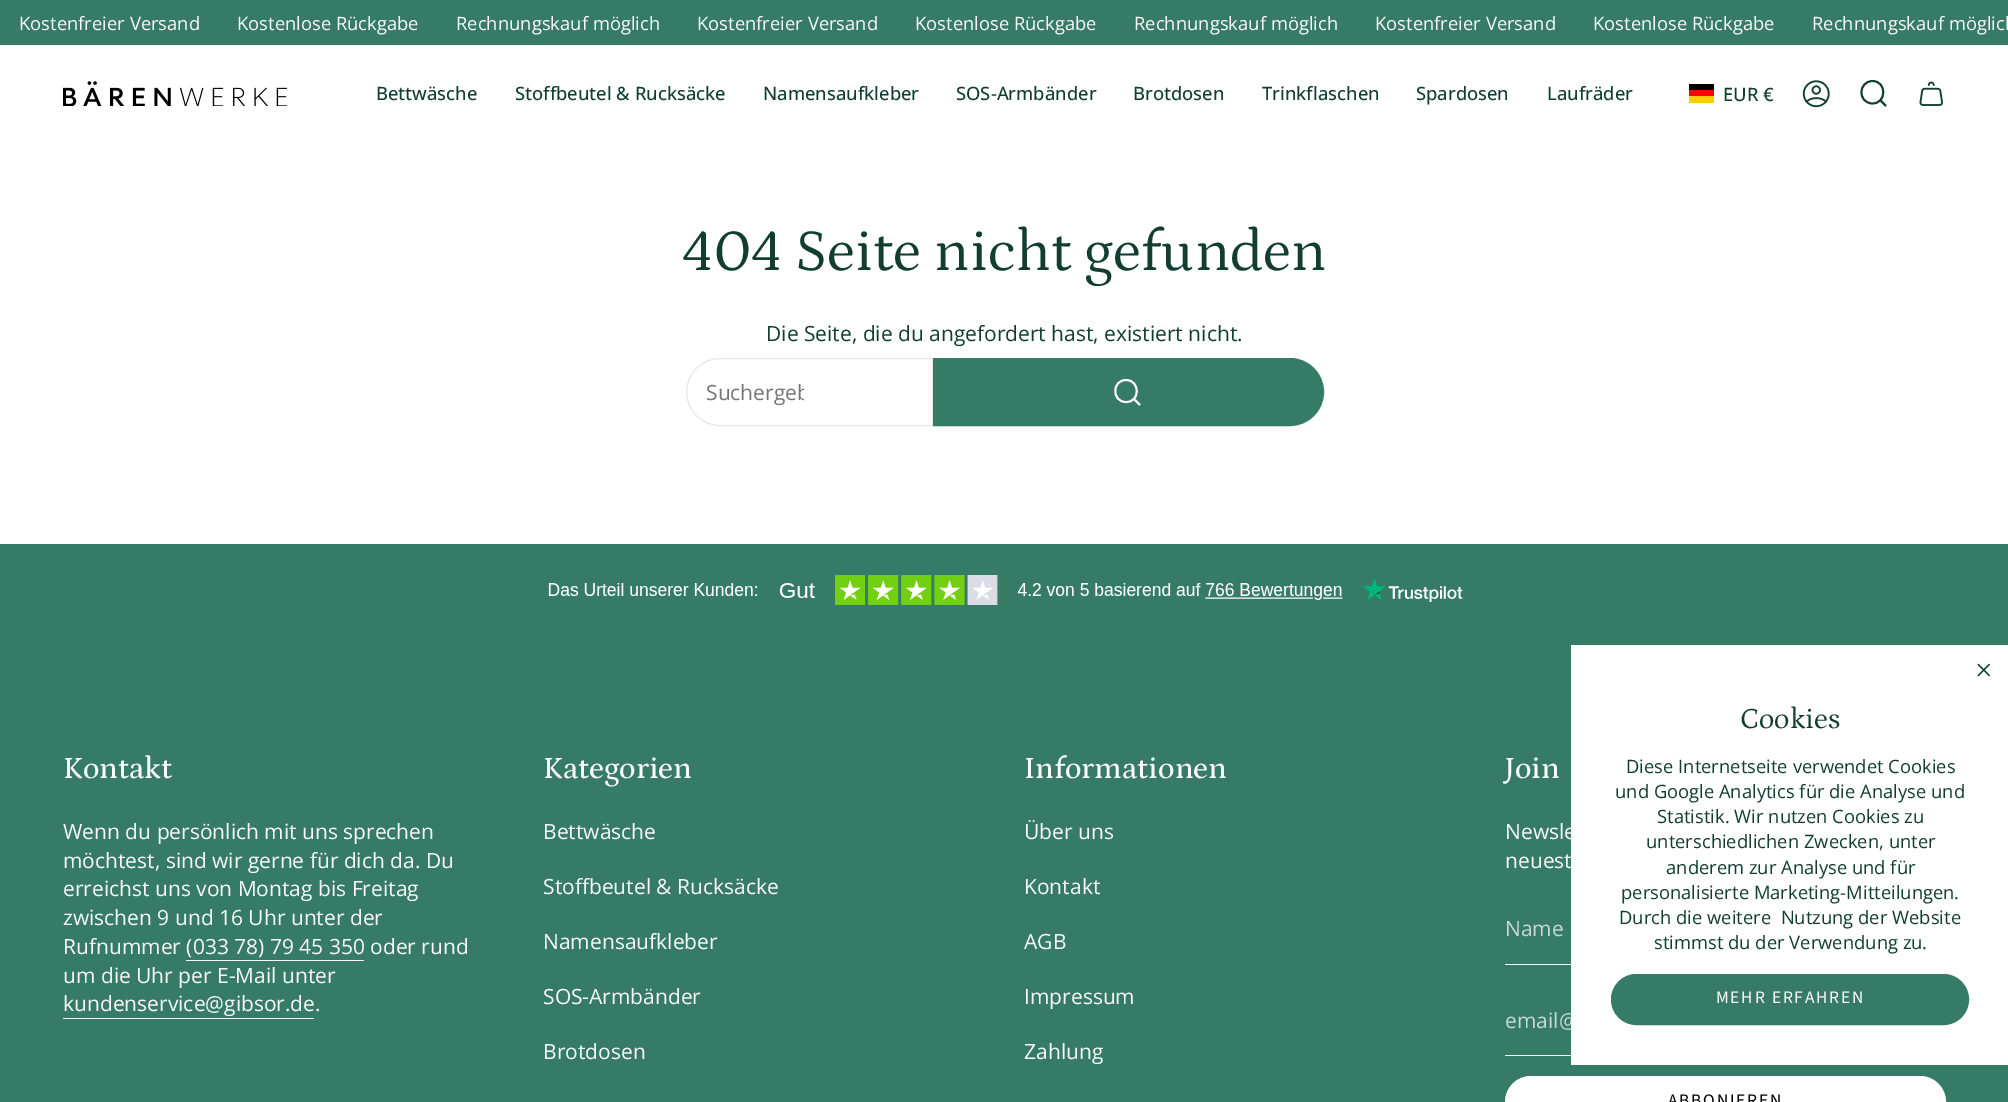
%!PS
<< /PageSize [2008 1102] >> setpagedevice
/roundrect { 5 dict begin { /r /h /w /y /x } { exch def } forall
  x r add y moveto x w add y 2 copy h add r arct x w add y h add x 1 index r arct
  x y h add x y r arct x y 2 copy exch w add exch r arct closepath end } def
/picture { 5 dict begin { /h /w /y /x /name } { exch def } forall
  gsave x y translate w h scale
  w h 8 [w 0 0 h 0 0] name (r) file false 3 colorimage grestore end } def
0 1102 translate 1 -1 scale
4 setmiterlimit
1 setgray
0 0 2008 1102 rectfill
0.212 0.482 0.396 setrgbcolor
0 0 2008 45 rectfill
/OpenSans-Regular [18.4 0 0 -18.4 0 0] selectfont
0.98 setgray
19 30 moveto (Kostenfreier Versand) show
237 30 moveto (Kostenlose Rückgabe) show
456 30 moveto (Rechnungskauf möglich) show
697 30 moveto (Kostenfreier Versand) show
915 30 moveto (Kostenlose Rückgabe) show
1134 30 moveto (Rechnungskauf möglich) show
1375 30 moveto (Kostenfreier Versand) show
1593 30 moveto (Kostenlose Rückgabe) show
1812 30 moveto (Rechnungskauf möglich) show
(img1.rgb) 63 81 225 25 picture
/OpenSans-Medium [18.4 0 0 -18.4 0 0] selectfont
0.067 0.243 0.188 setrgbcolor
376 100 moveto (Bettwäsche) show
515 100 moveto (Stoffbeutel & Rucksäcke) show
763 100 moveto (Namensaufkleber) show
956 100 moveto (SOS-Armbänder) show
1133 100 moveto (Brotdosen) show
1262 100 moveto (Trinkflaschen) show
1416 100 moveto (Spardosen) show
1547 100 moveto (Laufräder) show
1 0.8 0 setrgbcolor
1689 96 25 7 rectfill
0 setgray
1689 84 25 6 rectfill
1 0 0 setrgbcolor
1689 90 25 6 rectfill
0.067 0.243 0.188 setrgbcolor
1723 101 moveto (EUR €) show
(img2.rgb) 1802 80 28 28 picture
1.9 setlinewidth
newpath 1872.5 81 moveto 1887 81 1887 104 1872 103.5 curveto 1857.5 102.5 1858 81.5 1872.5 81 curveto closepath 1880 100 moveto 1886 106 lineto stroke
(img3.rgb) 1919 81 24 25 picture
/Petrona-Regular [59.4 0 0 -59.4 0 0] selectfont
683 270 moveto (404 Seite nicht gefunden) show
/OpenSans-Regular [21 0 0 -21 0 0] selectfont
766 341 moveto (Die Seite, die du angefordert hast, existiert nicht.) show
0.894 0.914 0.882 setrgbcolor
1 setlinewidth
newpath 720 358.5 moveto 932.5 358.5 lineto 932.5 425.5 lineto 720 425.5 lineto 701.5 425.5 686.5 410.5 686.5 392 curveto 686.5 373.5 701.5 358.5 720 358.5 curveto closepath stroke
gsave
706 378 98 28 rectclip
0.459 setgray
706 400 moveto (Suchergeb) show
grestore
0.212 0.482 0.396 setrgbcolor
newpath 933.5 358.5 moveto 1290 358.5 lineto 1308.5 358.5 1323.5 373.5 1323.5 392 curveto 1323.5 410.5 1308.5 425.5 1290 425.5 curveto 933.5 425.5 lineto closepath gsave fill grestore
stroke
1 setgray
1.9 setlinewidth
newpath 1126 380 moveto 1140.5 380 1140.5 403 1125.5 402 curveto 1111.5 401.5 1112 380 1126 380 curveto closepath 1134 399 moveto 1140 405 lineto stroke
0.212 0.482 0.396 setrgbcolor
0 544 2008 558 rectfill
0.98 setgray
1505 839 moveto (Newsle) show
1505 868 moveto (neuest) show
0.788 0.855 0.835 setrgbcolor
1505 1028 moveto (email@) show
1 setgray
1571 645 437 420 rectfill
(img4.rgb) 1977 663 13 14 picture
/Petrona-Regular [29.5 0 0 -29.5 0 0] selectfont
0.067 0.243 0.188 setrgbcolor
1740 728 moveto (Cookies) show
/OpenSans-Regular [18.4 0 0 -18.4 0 0] selectfont
1626 773 moveto (Diese Internetseite verwendet Cookies) show
1615 798 moveto (und Google Analytics für die Analyse und) show
1657 823 moveto (Statistik. Wir nutzen Cookies zu) show
1646 848 moveto (unterschiedlichen Zwecken, unter) show
1666 874 moveto (anderem zur Analyse und für) show
1621 899 moveto (personalisierte Marketing-Mitteilungen.) show
1619 924 moveto (Durch die weitere  Nutzung der Website) show
1654 949 moveto (stimmst du der Verwendung zu.) show
0.212 0.482 0.396 setrgbcolor
1611.5 974.5 357 50 25 roundrect gsave fill grestore
1 setlinewidth
stroke
/SourceSansPro-Regular [17.5 0 0 -17.5 0 0] selectfont
0.98 setgray
1716 1003 moveto 1.75 0 (MEHR ERFAHREN) ashow
(img5.rgb) 548 575 915 30 picture
/Petrona-Medium [31.25 0 0 -31.25 0 0] selectfont
63 778 moveto (Kontakt) show
/OpenSans-Regular [21 0 0 -21 0 0] selectfont
63 839 moveto (Wenn du persönlich mit uns sprechen) show
63 868 moveto (möchtest, sind wir gerne für dich da. Du) show
63 896 moveto (erreichst uns von Montag bis Freitag) show
63 925 moveto (zwischen 9 und 16 Uhr unter der) show
63 954 moveto (Rufnummer \(033 78\) 79 45 350 oder rund) show
186 960 178 1 rectfill
63 983 moveto (um die Uhr per E-Mail unter) show
63 1011 moveto (kundenservice@gibsor.de.) show
63 1018 251 1 rectfill
/Petrona-Medium [31.25 0 0 -31.25 0 0] selectfont
543 778 moveto (Kategorien) show
/OpenSans-Regular [21 0 0 -21 0 0] selectfont
543 839 moveto (Bettwäsche) show
543 894 moveto (Stoffbeutel & Rucksäcke) show
543 949 moveto (Namensaufkleber) show
543 1004 moveto (SOS-Armbänder) show
543 1059 moveto (Brotdosen) show
/Petrona-Medium [31.25 0 0 -31.25 0 0] selectfont
1024 778 moveto (Informationen) show
/OpenSans-Regular [21 0 0 -21 0 0] selectfont
1024 839 moveto (Über uns) show
1024 894 moveto (Kontakt) show
1024 949 moveto (AGB) show
1024 1004 moveto (Impressum) show
1024 1059 moveto (Zahlung) show
/Petrona-Medium [31.25 0 0 -31.25 0 0] selectfont
1505 778 moveto (Join) show
1 setgray
1505 964 66 1 rectfill
/OpenSans-Regular [21 0 0 -21 0 0] selectfont
0.788 0.855 0.835 setrgbcolor
1505 936 moveto (Name) show
1 setgray
1505 1055 66 1 rectfill
1505.5 1076.5 440 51 25.5 roundrect gsave fill grestore
stroke
/SourceSansPro-Regular [17.5 0 0 -17.5 0 0] selectfont
0 setgray
1668 1106 moveto 1.75 0 (ABBONIEREN) ashow
showpage
